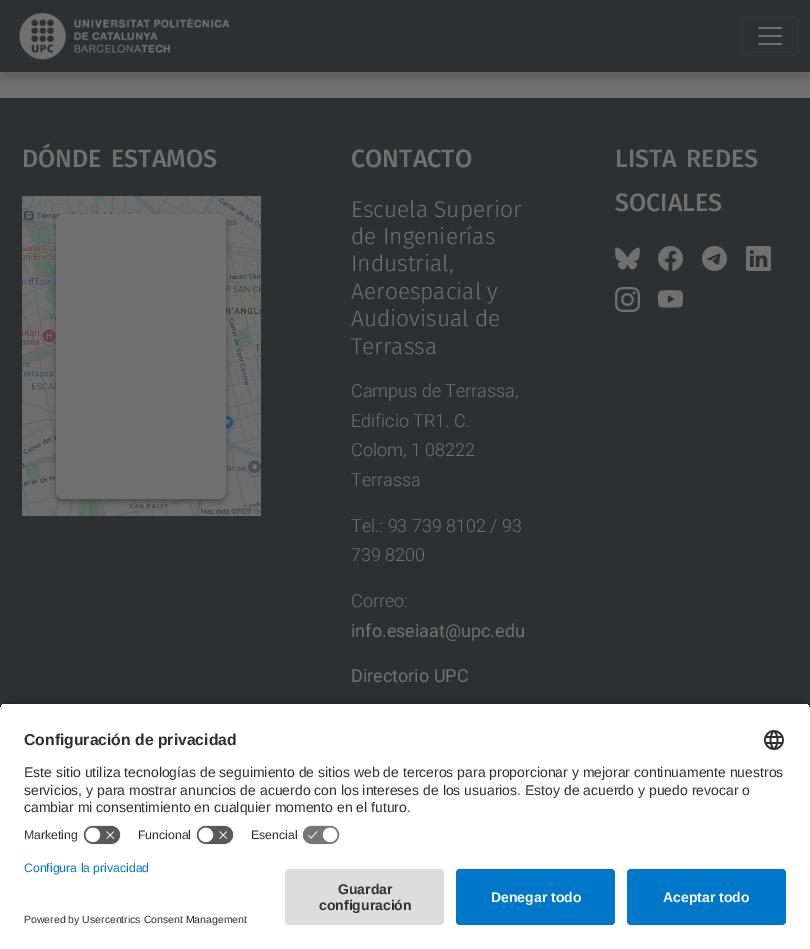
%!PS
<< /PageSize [810 949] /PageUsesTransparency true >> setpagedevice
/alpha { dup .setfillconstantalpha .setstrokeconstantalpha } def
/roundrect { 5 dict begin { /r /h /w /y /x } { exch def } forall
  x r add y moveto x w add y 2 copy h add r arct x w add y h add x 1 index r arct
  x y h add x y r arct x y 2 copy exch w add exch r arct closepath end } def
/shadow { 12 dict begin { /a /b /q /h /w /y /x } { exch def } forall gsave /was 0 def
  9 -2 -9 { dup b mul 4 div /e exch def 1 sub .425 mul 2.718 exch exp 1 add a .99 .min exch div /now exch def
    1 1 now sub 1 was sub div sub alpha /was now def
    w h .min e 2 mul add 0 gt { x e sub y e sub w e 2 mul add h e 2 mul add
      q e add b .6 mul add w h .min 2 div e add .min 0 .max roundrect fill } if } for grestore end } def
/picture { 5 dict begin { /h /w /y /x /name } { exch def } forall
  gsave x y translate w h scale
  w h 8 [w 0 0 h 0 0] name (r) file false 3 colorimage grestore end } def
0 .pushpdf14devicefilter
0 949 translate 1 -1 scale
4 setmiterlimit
0.439 setgray
0 0 810 949 rectfill
0.141 setgray
0 7 810 72 0 4 0.2 shadow
0.18 0.184 0.188 setrgbcolor
0 0 810 72 rectfill
(img1.rgb) 19 12 211 48 picture
0.204 0.208 0.212 setrgbcolor
742.5 16.5 55 39 5.5 roundrect stroke
(img2.rgb) 758 27 24 18 picture
0.18 0.184 0.188 setrgbcolor
0 98 810 613 rectfill
/FiraSans-Medium [25 0 0 -25 0 0] selectfont
0.439 setgray
22 167 moveto (DÓNDE) show
111 167 moveto (ESTAMOS) show
(img3.rgb) 22 196 239 320 picture
0.141 setgray
56 217 170 285 8 3 0.5 shadow
0.439 setgray
56 214 170 285 8 roundrect fill
351 167 moveto (CONTACTO) show
/FiraSans-Light [22.75 0 0 -22.75 0 0] selectfont
351 217 moveto (Escuela Superior) show
351 244 moveto (de Ingenierías) show
351 271 moveto (Industrial,) show
351 299 moveto (Aeroespacial y) show
351 326 moveto (Audiovisual de) show
351 354 moveto (Terrassa) show
/Roboto-Light [18 0 0 -18 0 0] selectfont
351 397 moveto (Campus de Terrassa,) show
351 427 moveto (Edificio TR1. C.) show
351 456 moveto (Colom, 1 08222) show
351 486 moveto (Terrassa) show
351 532 moveto (Tel.: 93 739 8102 / 93) show
351 561 moveto (739 8200) show
351 607 moveto (Correo:) show
/Roboto-Regular [18 0 0 -18 0 0] selectfont
351 637 moveto (info.eseiaat@upc.edu) show
351 682 moveto (Directorio UPC) show
/FiraSans-Medium [25 0 0 -25 0 0] selectfont
615 167 moveto (LISTA) show
686 167 moveto (REDES) show
615 211 moveto (SOCIALES) show
(img4.rgb) 615 247 25 23 picture
(img5.rgb) 658 246 25 25 picture
(img6.rgb) 702 246 25 25 picture
(img7.rgb) 746 246 25 25 picture
(img8.rgb) 615 287 25 25 picture
(img9.rgb) 658 290 25 18 picture
0 setgray
0 706 810 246 8 3.5 0.8 shadow
gsave
newpath 8 703 moveto 802 703 lineto 806.5 703 810 706.5 810 711 curveto 810 861 lineto 0 861 lineto 0 711 lineto 0 706.5 3.5 703 8 703 curveto closepath clip newpath
1 setgray
0 704 810 157 rectfill
0 704 810 117 rectfill
grestore
/LiberationSans-Bold [15.75 0 0 -15.75 0 0] selectfont
0.188 setgray
24 745 moveto (Configuración de privacidad) show
(img10.rgb) 764 730 20 20 picture
/LiberationSans-Regular [14 0 0 -14 0 0] selectfont
24 777 moveto (Este sitio utiliza tecnologías de seguimiento de sitios web de terceros para proporcionar y mejorar continuamente nuestros) show
24 795 moveto (servicios, y para mostrar anuncios de acuerdo con los intereses de los usuarios. Estoy de acuerdo y puedo revocar o) show
24 812 moveto (cambiar mi consentimiento en cualquier momento en el futuro.) show
/LiberationSans-Regular [12.25 0 0 -12.25 0 0] selectfont
24 839 moveto (Marketing) show
(img11.rgb) 83 825 38 20 picture
138 839 moveto (Funcional) show
(img11.rgb) 196 825 38 20 picture
251 839 moveto (Esencial) show
(img12.rgb) 302 825 38 20 picture
1 setgray
0 861 810 88 rectfill
0 0.467 0.784 setrgbcolor
24 872 moveto (Configura la privacidad) show
/LiberationSans-Regular [10.5 0 0 -10.5 0 0] selectfont
0.188 setgray
24 923 moveto (Powered by Usercentrics Consent Management) show
0.867 setgray
285 869 159 56 4 roundrect fill
/LiberationSans-Bold [14 0 0 -14 0 0] selectfont
0.188 setgray
338 894 moveto (Guardar) show
319 910 moveto (configuración) show
0 0.467 0.784 setrgbcolor
456 869 159 56 4 roundrect fill
0.98 setgray
491 902 moveto (Denegar todo) show
0 0.467 0.784 setrgbcolor
627 869 159 56 4 roundrect fill
0.98 setgray
663 902 moveto (Aceptar todo) show
.poppdf14devicefilter showpage
